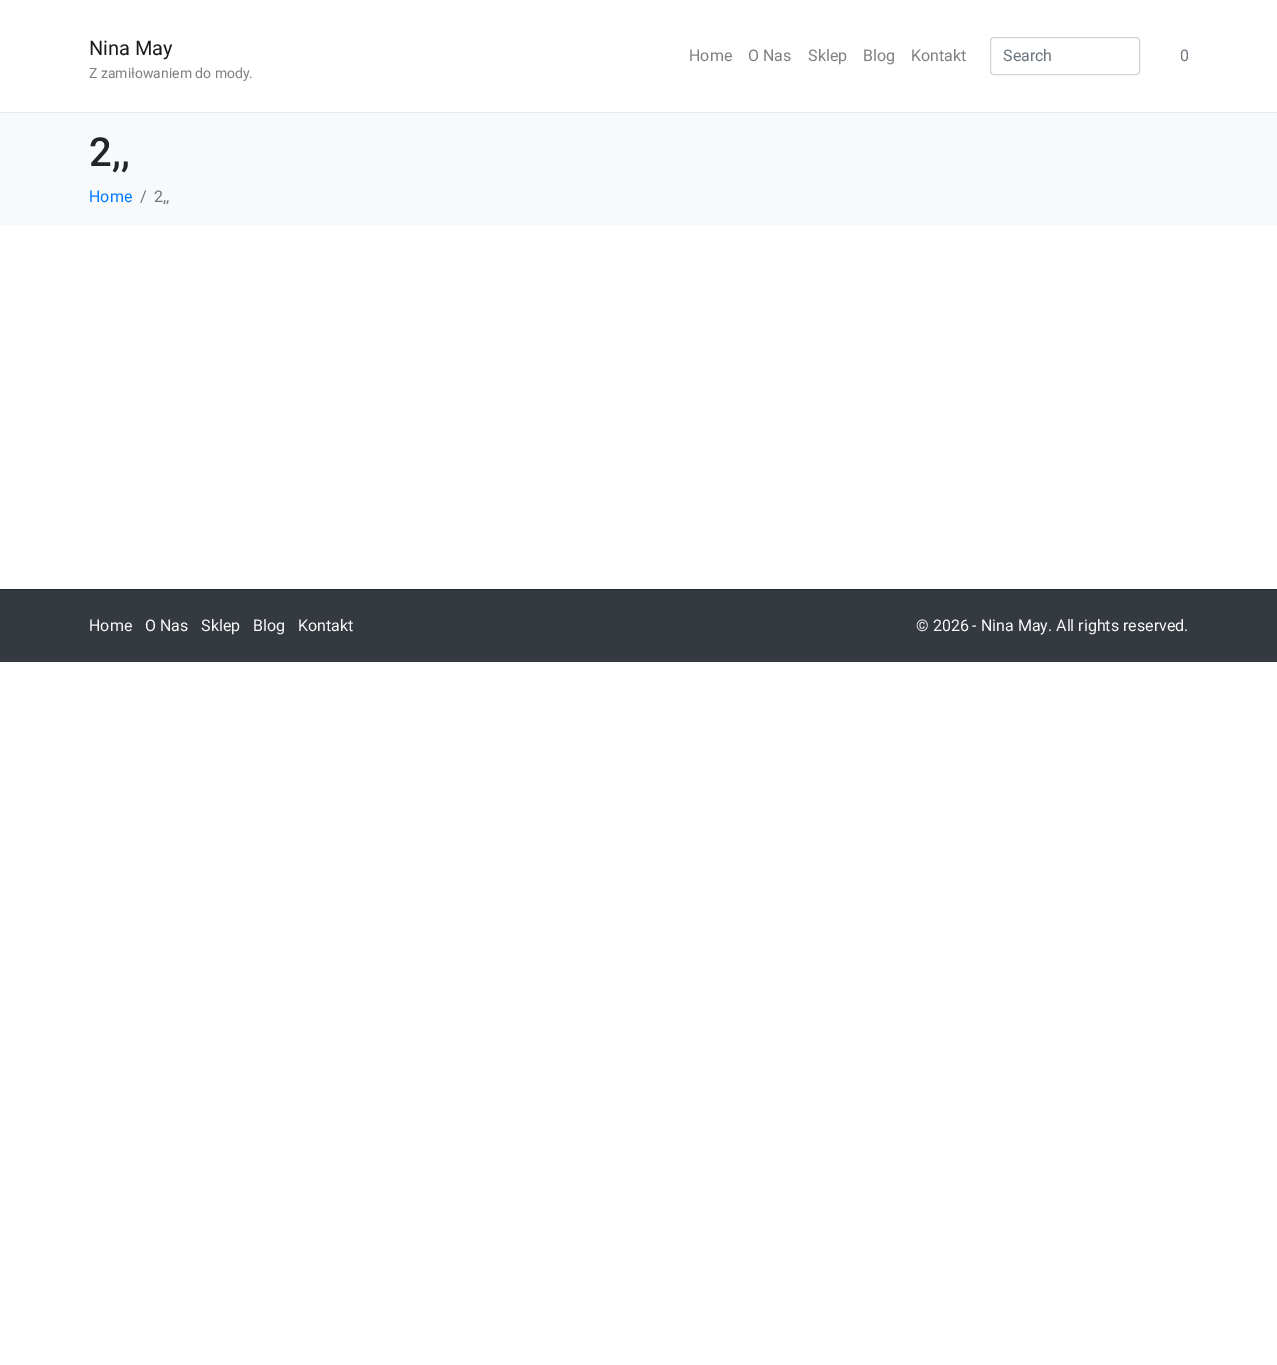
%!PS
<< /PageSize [1277 1365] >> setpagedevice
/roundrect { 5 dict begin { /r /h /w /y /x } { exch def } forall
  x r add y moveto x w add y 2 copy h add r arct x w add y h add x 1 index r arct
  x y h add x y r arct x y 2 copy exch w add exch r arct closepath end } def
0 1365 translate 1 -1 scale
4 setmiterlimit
1 setgray
0 0 1277 1365 rectfill
0.914 0.925 0.937 setrgbcolor
0 112 1277 1 rectfill
/Roboto-Regular [20 0 0 -20 0 0] selectfont
0.102 setgray
89 55 moveto (Nina May) show
/Roboto-Regular [14 0 0 -14 0 0] selectfont
0.502 setgray
89 78 moveto (Z zamiłowaniem do mody.) show
/Roboto-Regular [16 0 0 -16 0 0] selectfont
689 61 moveto (Home) show
748 61 moveto (O Nas) show
808 61 moveto (Sklep) show
863 61 moveto (Blog) show
911 61 moveto (Kontakt) show
0.808 0.831 0.855 setrgbcolor
990.5 37.5 149 37 3.5 roundrect stroke
0.424 0.459 0.49 setrgbcolor
1003 61 moveto (Search) show
1180 61 moveto (0) show
0.973 0.976 0.98 setrgbcolor
0 113 1277 112 rectfill
/Roboto-Medium [40 0 0 -40 0 0] selectfont
0.129 0.145 0.161 setrgbcolor
89 166 moveto (2,,) show
/Roboto-Regular [16 0 0 -16 0 0] selectfont
0 0.482 1 setrgbcolor
89 202 moveto (Home) show
0.424 0.459 0.49 setrgbcolor
140 202 moveto (/) show
154 202 moveto (2,,) show
0.204 0.227 0.251 setrgbcolor
0 590 1277 72 rectfill
0.129 0.145 0.161 setrgbcolor
0 589 1277 1 rectfill
0.973 0.976 0.98 setrgbcolor
89 631 moveto (Home) show
145 631 moveto (O Nas) show
201 631 moveto (Sklep) show
253 631 moveto (Blog) show
298 631 moveto (Kontakt) show
916 631 moveto (© 2026 - Nina May. All rights reserved.) show
showpage
